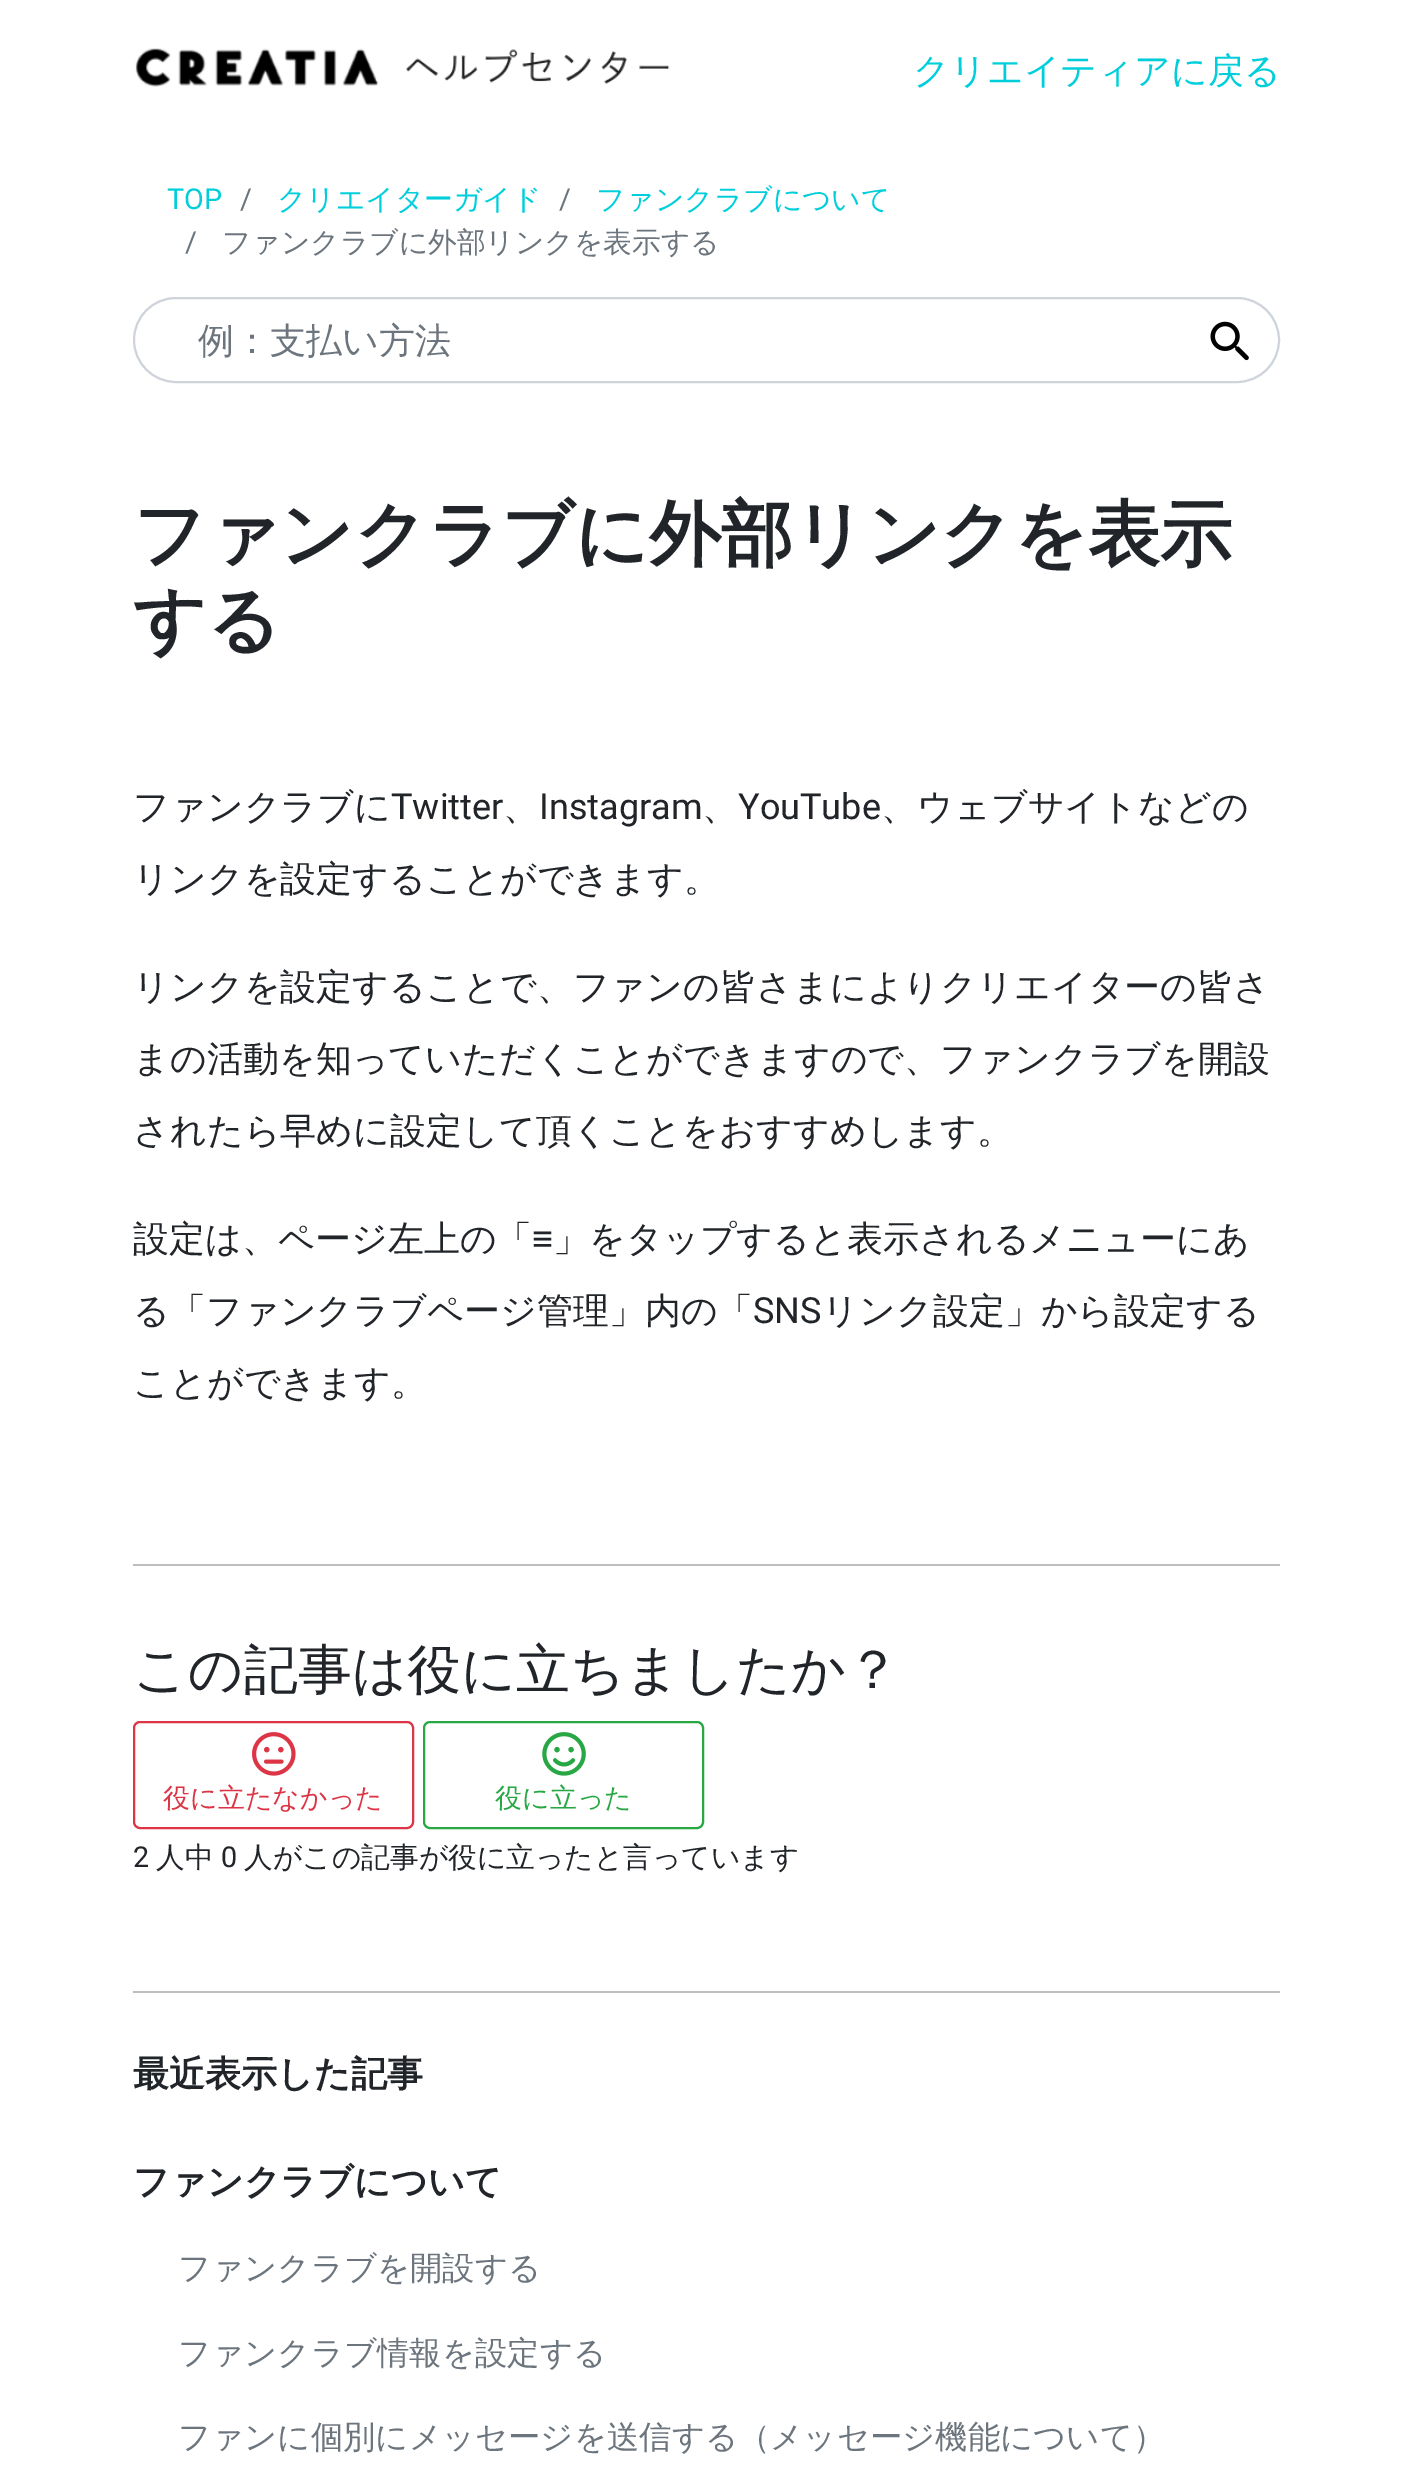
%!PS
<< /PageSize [1413 2466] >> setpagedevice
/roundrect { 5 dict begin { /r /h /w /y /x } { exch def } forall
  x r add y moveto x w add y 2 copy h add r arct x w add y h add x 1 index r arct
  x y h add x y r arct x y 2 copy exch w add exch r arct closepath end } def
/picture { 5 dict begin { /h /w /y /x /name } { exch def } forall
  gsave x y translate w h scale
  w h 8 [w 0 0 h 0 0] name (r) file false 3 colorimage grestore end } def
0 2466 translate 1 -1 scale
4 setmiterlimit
1 setgray
0 0 1413 2466 rectfill
(img1.rgb) 135 48 535 39 picture
/WenQuanYiZenHei-Medium [36 0 0 -36 0 0] selectfont
0 0.808 0.859 setrgbcolor
913 83 moveto (クリエイティアに戻る) show
/Roboto-Regular [28.75 0 0 -28.75 0 0] selectfont
167 209 moveto (TOP) show
0.424 0.459 0.49 setrgbcolor
240 209 moveto (/) show
/WenQuanYiZenHei-Medium [28.75 0 0 -28.75 0 0] selectfont
0 0.808 0.859 setrgbcolor
277 209 moveto (クリエイターガイド) show
/Roboto-Regular [28.75 0 0 -28.75 0 0] selectfont
0.424 0.459 0.49 setrgbcolor
559 209 moveto (/) show
/WenQuanYiZenHei-Medium [28.75 0 0 -28.75 0 0] selectfont
0 0.808 0.859 setrgbcolor
596 209 moveto (ファンクラブについて) show
/Roboto-Regular [28.75 0 0 -28.75 0 0] selectfont
0.424 0.459 0.49 setrgbcolor
185 252 moveto (/) show
/WenQuanYiZenHei-Medium [28.75 0 0 -28.75 0 0] selectfont
222 252 moveto (ファンクラブに外部リンクを表示する) show
0.808 0.831 0.855 setrgbcolor
2 setlinewidth
134 298 1145 84 42 roundrect stroke
/WenQuanYiZenHei-Medium [36 0 0 -36 0 0] selectfont
0.424 0.459 0.49 setrgbcolor
198 353 moveto (例：支払い方法) show
(img2.rgb) 1210 321 39 40 picture
/WenQuanYiZenHei-Bold [72 0 0 -72 0 0] selectfont
0.129 0.145 0.161 setrgbcolor
133 559 moveto (ファンクラブに外部リンクを表示) show
133 645 moveto (する) show
0.745 setgray
133 1564 1147 2 rectfill
/WenQuanYiZenHei-Medium [36 0 0 -36 0 0] selectfont
0.129 0.145 0.161 setrgbcolor
133 819 moveto (ファンクラブに) show
/Roboto-Regular [36 0 0 -36 0 0] selectfont
391 819 moveto (Twitter) show
/WenQuanYiZenHei-Medium [36 0 0 -36 0 0] selectfont
503 819 moveto (、) show
/Roboto-Regular [36 0 0 -36 0 0] selectfont
539 819 moveto (Instagram) show
/WenQuanYiZenHei-Medium [36 0 0 -36 0 0] selectfont
702 819 moveto (、) show
/Roboto-Regular [36 0 0 -36 0 0] selectfont
738 819 moveto (YouTube) show
/WenQuanYiZenHei-Medium [36 0 0 -36 0 0] selectfont
881 819 moveto (、ウェブサイトなどの) show
133 891 moveto (リンクを設定することができます。) show
133 999 moveto (リンクを設定することで、ファンの皆さまによりクリエイターの皆さ) show
133 1071 moveto (まの活動を知っていただくことができますので、ファンクラブを開設) show
133 1143 moveto (されたら早めに設定して頂くことをおすすめします。) show
133 1251 moveto (設定は、ページ左上の「) show
/LiberationSans-Regular [36 0 0 -36 0 0] selectfont
532 1251 moveto (≡) show
/WenQuanYiZenHei-Medium [36 0 0 -36 0 0] selectfont
553 1251 moveto (」をタップすると表示されるメニューにあ) show
133 1323 moveto (る「ファンクラブページ管理」内の「) show
/Roboto-Regular [36 0 0 -36 0 0] selectfont
753 1323 moveto (SNS) show
/WenQuanYiZenHei-Medium [36 0 0 -36 0 0] selectfont
822 1323 moveto (リンク設定」から設定する) show
133 1395 moveto (ことができます。) show
0.745 setgray
133 1991 1147 2 rectfill
/WenQuanYiZenHei-Medium [54 0 0 -54 0 0] selectfont
0.129 0.145 0.161 setrgbcolor
133 1688 moveto (この記事は役に立ちましたか？) show
0.863 0.208 0.271 setrgbcolor
134 1722 279 106 6 roundrect stroke
(img3.rgb) 252 1732 44 44 picture
/WenQuanYiZenHei-Medium [27 0 0 -27 0 0] selectfont
163 1807 moveto (役に立たなかった) show
0.157 0.655 0.271 setrgbcolor
424 1722 279 106 6 roundrect stroke
(img4.rgb) 542 1732 44 44 picture
495 1807 moveto (役に立った) show
/Roboto-Regular [28.75 0 0 -28.75 0 0] selectfont
0.129 0.145 0.161 setrgbcolor
133 1867 moveto (2) show
/WenQuanYiZenHei-Medium [28.75 0 0 -28.75 0 0] selectfont
156 1867 moveto (人中) show
/Roboto-Regular [28.75 0 0 -28.75 0 0] selectfont
221 1867 moveto (0) show
/WenQuanYiZenHei-Medium [28.75 0 0 -28.75 0 0] selectfont
244 1867 moveto (人がこの記事が役に立ったと言っています) show
/WenQuanYiZenHei-Bold [36 0 0 -36 0 0] selectfont
133 2086 moveto (最近表示した記事) show
133 2194 moveto (ファンクラブについて) show
/WenQuanYiZenHei-Medium [32.4 0 0 -32.4 0 0] selectfont
0.424 0.459 0.49 setrgbcolor
178 2279 moveto (ファンクラブを開設する) show
178 2364 moveto (ファンクラブ情報を設定する) show
178 2448 moveto (ファンに個別にメッセージを送信する（メッセージ機能について）) show
showpage
